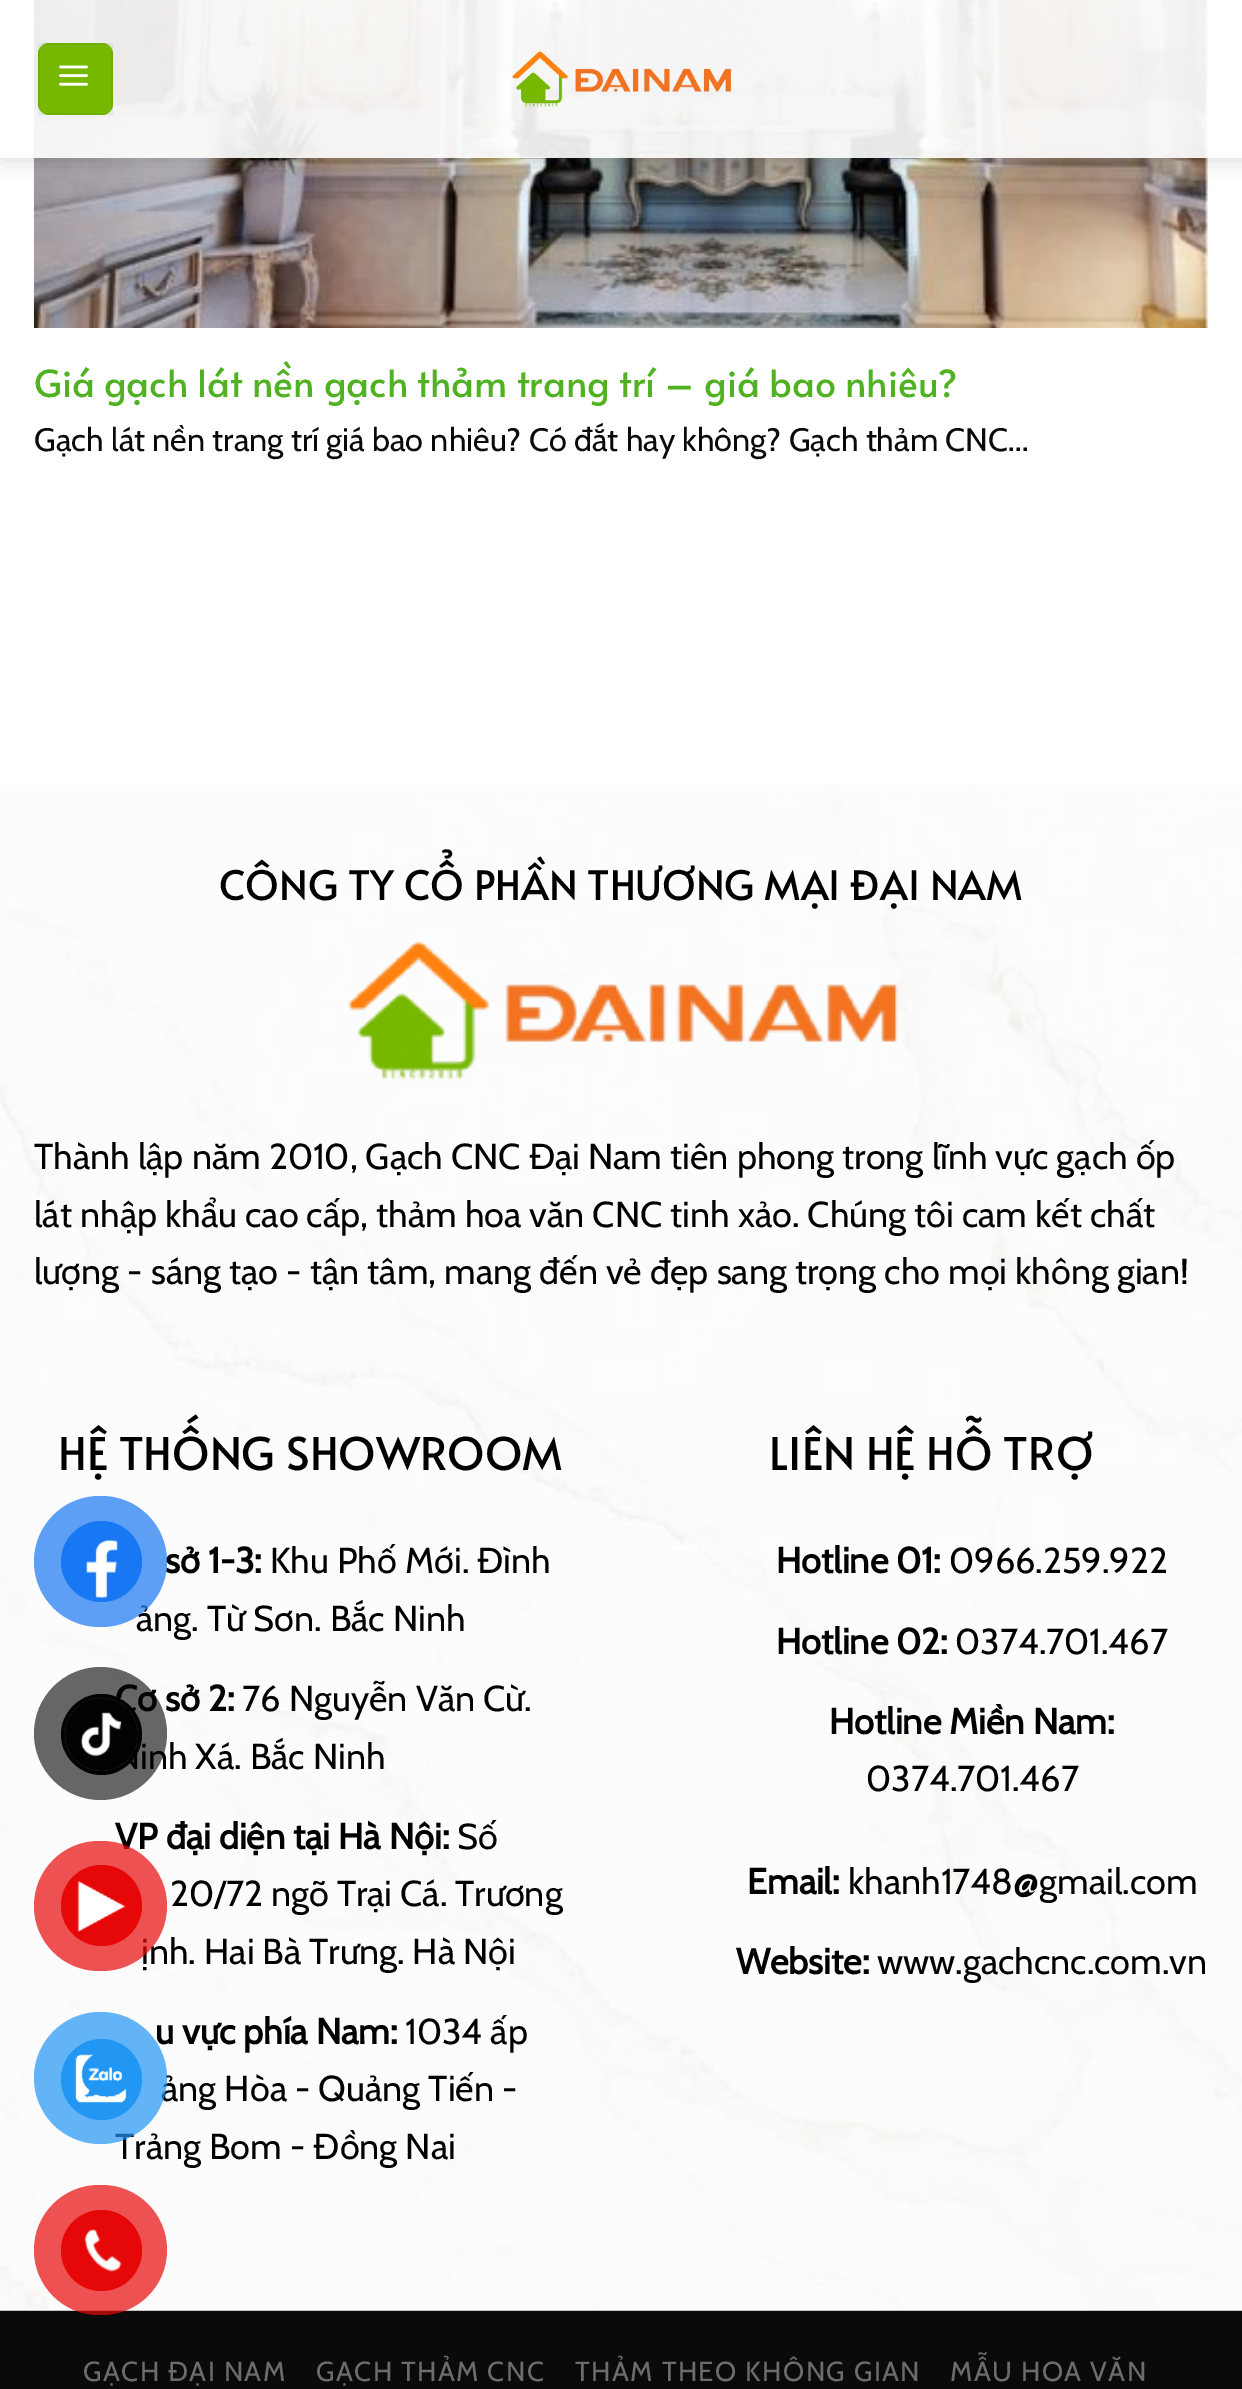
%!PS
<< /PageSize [1242 2389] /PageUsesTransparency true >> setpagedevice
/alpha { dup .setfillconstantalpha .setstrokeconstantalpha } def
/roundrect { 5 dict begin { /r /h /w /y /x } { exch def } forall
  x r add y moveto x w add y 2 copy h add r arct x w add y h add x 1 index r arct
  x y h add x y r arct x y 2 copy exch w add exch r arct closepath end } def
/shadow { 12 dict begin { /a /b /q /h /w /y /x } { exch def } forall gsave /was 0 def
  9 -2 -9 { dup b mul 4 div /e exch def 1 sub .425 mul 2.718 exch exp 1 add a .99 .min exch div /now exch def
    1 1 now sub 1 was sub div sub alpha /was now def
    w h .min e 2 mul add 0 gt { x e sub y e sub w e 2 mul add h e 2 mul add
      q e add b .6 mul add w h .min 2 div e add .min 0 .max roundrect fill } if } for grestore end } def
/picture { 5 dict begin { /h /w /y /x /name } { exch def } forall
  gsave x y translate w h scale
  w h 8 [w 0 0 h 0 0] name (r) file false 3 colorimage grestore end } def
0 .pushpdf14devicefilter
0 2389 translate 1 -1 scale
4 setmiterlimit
1 setgray
0 0 1242 2389 rectfill
(img3.rgb) 33 0 1176 328 picture
gsave
newpath 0 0 moveto 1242 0 lineto 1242 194 lineto 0 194 lineto closepath 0 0 moveto 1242 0 lineto 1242 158 lineto 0 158 lineto closepath eoclip newpath
0 setgray
2 2 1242 158 0 11 0.15 shadow
grestore
0.9 alpha
0 0 1242 158 rectfill
1 alpha
0.463 0.722 0 setrgbcolor
38 43 75 72 11 roundrect fill
0.05 alpha
0 setgray
2 setlinewidth
39 44 73 70 rectstroke
1 alpha
(img1.rgb) 59 65 29 21 picture
(img2.rgb) 512 51 220 56 picture
/Alata-Regular [37.25 0 0 -37.25 0 0] selectfont
0.314 0.698 0.137 setrgbcolor
34 397 moveto (Giá gạch lát nền gạch thảm trang trí – giá bao nhiêu?) show
/Cabin-Regular [32.4 0 0 -32.4 0 0] selectfont
0.039 setgray
34 451 moveto (Gạch lát nền trang trí giá bao nhiêu? Có đắt hay không? Gạch thảm CNC...) show
0.702 setgray
0 2310 1242 1 rectfill
(img4.rgb) 0 785 1242 1526 picture
/Alata-Regular [40.5 0 0 -40.5 0 0] selectfont
0 setgray
219 900 moveto (CÔNG TY CỔ PHẦN THƯƠNG MẠI ĐẠI NAM) show
(img5.rgb) 348 940 551 140 picture
/Cabin-Regular [36 0 0 -36 0 0] selectfont
34 1169 moveto (Thành lập năm 2010, Gạch CNC Đại Nam tiên phong trong lĩnh vực gạch ốp) show
34 1227 moveto (lát nhập khẩu cao cấp, thảm hoa văn CNC tinh xảo. Chúng tôi cam kết chất) show
34 1284 moveto (lượng - sáng tạo - tận tâm, mang đến vẻ đẹp sang trọng cho mọi không gian!) show
/Alata-Regular [45 0 0 -45 0 0] selectfont
58 1470 moveto (HỆ THỐNG SHOWROOM) show
/Cabin-Bold [36 0 0 -36 0 0] selectfont
165 1573 moveto (sở 1-3:) show
/Cabin-Regular [36 0 0 -36 0 0] selectfont
270 1573 moveto (Khu Phố Mới. Đình) show
136 1631 moveto (ảng. Từ Sơn. Bắc Ninh) show
/Cabin-Bold [36 0 0 -36 0 0] selectfont
115 1711 moveto (Cơ sở 2:) show
/Cabin-Regular [36 0 0 -36 0 0] selectfont
242 1711 moveto (76 Nguyễn Văn Cừ.) show
140 1769 moveto (inh Xá. Bắc Ninh) show
/Cabin-Bold [36 0 0 -36 0 0] selectfont
115 1849 moveto (VP đại diện tại Hà Nội:) show
/Cabin-Regular [36 0 0 -36 0 0] selectfont
457 1849 moveto (Số) show
170 1906 moveto (20/72 ngõ Trại Cá. Trương) show
141 1964 moveto (ịnh. Hai Bà Trưng. Hà Nội) show
/Cabin-Bold [36 0 0 -36 0 0] selectfont
155 2044 moveto (u vực phía Nam:) show
/Cabin-Regular [36 0 0 -36 0 0] selectfont
405 2044 moveto (1034 ấp) show
161 2101 moveto (ảng Hòa - Quảng Tiến -) show
115 2159 moveto (Trảng Bom - Đồng Nai) show
/Alata-Regular [45 0 0 -45 0 0] selectfont
769 1470 moveto (LIÊN HỆ HỖ TRỢ) show
(img6.rgb) 673 1545 25 6 picture
/Cabin-Bold [36 0 0 -36 0 0] selectfont
776 1573 moveto (Hotline 01:) show
/Cabin-Regular [36 0 0 -36 0 0] selectfont
949 1573 moveto (0966.259.922) show
/Cabin-Bold [36 0 0 -36 0 0] selectfont
776 1654 moveto (Hotline 02:) show
/Cabin-Regular [36 0 0 -36 0 0] selectfont
955 1654 moveto (0374.701.467) show
/Cabin-Bold [36 0 0 -36 0 0] selectfont
829 1734 moveto (Hotline Miền Nam:) show
/Cabin-Regular [36 0 0 -36 0 0] selectfont
866 1791 moveto (0374.701.467) show
/Cabin-Bold [36 0 0 -36 0 0] selectfont
747 1894 moveto (Email:) show
/Cabin-Regular [36 0 0 -36 0 0] selectfont
848 1894 moveto (khanh1748@gmail.com) show
/Cabin-Bold [36 0 0 -36 0 0] selectfont
736 1974 moveto (Website:) show
/Cabin-Regular [36 0 0 -36 0 0] selectfont
877 1974 moveto (www.gachcnc.com.vn) show
0.039 setgray
0 2311 1242 78 rectfill
/Cabin-Regular [27.5 0 0 -27.5 0 0] selectfont
0.424 setgray
83 2381 moveto 1.4 0 (GẠCH ĐẠI NAM) ashow
316 2381 moveto 1.4 0 (GẠCH THẢM CNC) ashow
575 2381 moveto 1.4 0 (THẢM THEO KHÔNG GIAN) ashow
950 2381 moveto 1.4 0 (MẪU HOA VĂN) ashow
0.7 alpha
0.094 0.467 0.949 setrgbcolor
34 1496 133 131 65.5 roundrect fill
1 alpha
newpath 101.5 1561.5 40.5 0 360 arc closepath fill
(img7.rgb) 86 1539 32 59 picture
0.6 alpha
0.008 setgray
newpath 100.5 1733.5 66.5 0 360 arc closepath fill
1 alpha
newpath 101.5 1734.5 40.5 0 360 arc closepath fill
(img8.rgb) 64 1698 74 73 picture
0.7 alpha
0.902 0.031 0.031 setrgbcolor
34 1841 133 130 65 roundrect fill
1 alpha
newpath 101.5 1905.5 40.5 0 360 arc closepath fill
(img9.rgb) 77 1880 49 53 picture
0.7 alpha
0.129 0.588 0.953 setrgbcolor
34 2012 133 132 66 roundrect fill
1 alpha
newpath 101.5 2079.5 40.5 0 360 arc closepath fill
(img10.rgb) 75 2054 52 49 picture
0.7 alpha
0.902 0.031 0.031 setrgbcolor
34 2185 133 130 65 roundrect fill
1 alpha
newpath 101.5 2250.5 40.5 0 360 arc closepath fill
(img11.rgb) 84 2229 38 43 picture
.poppdf14devicefilter showpage
